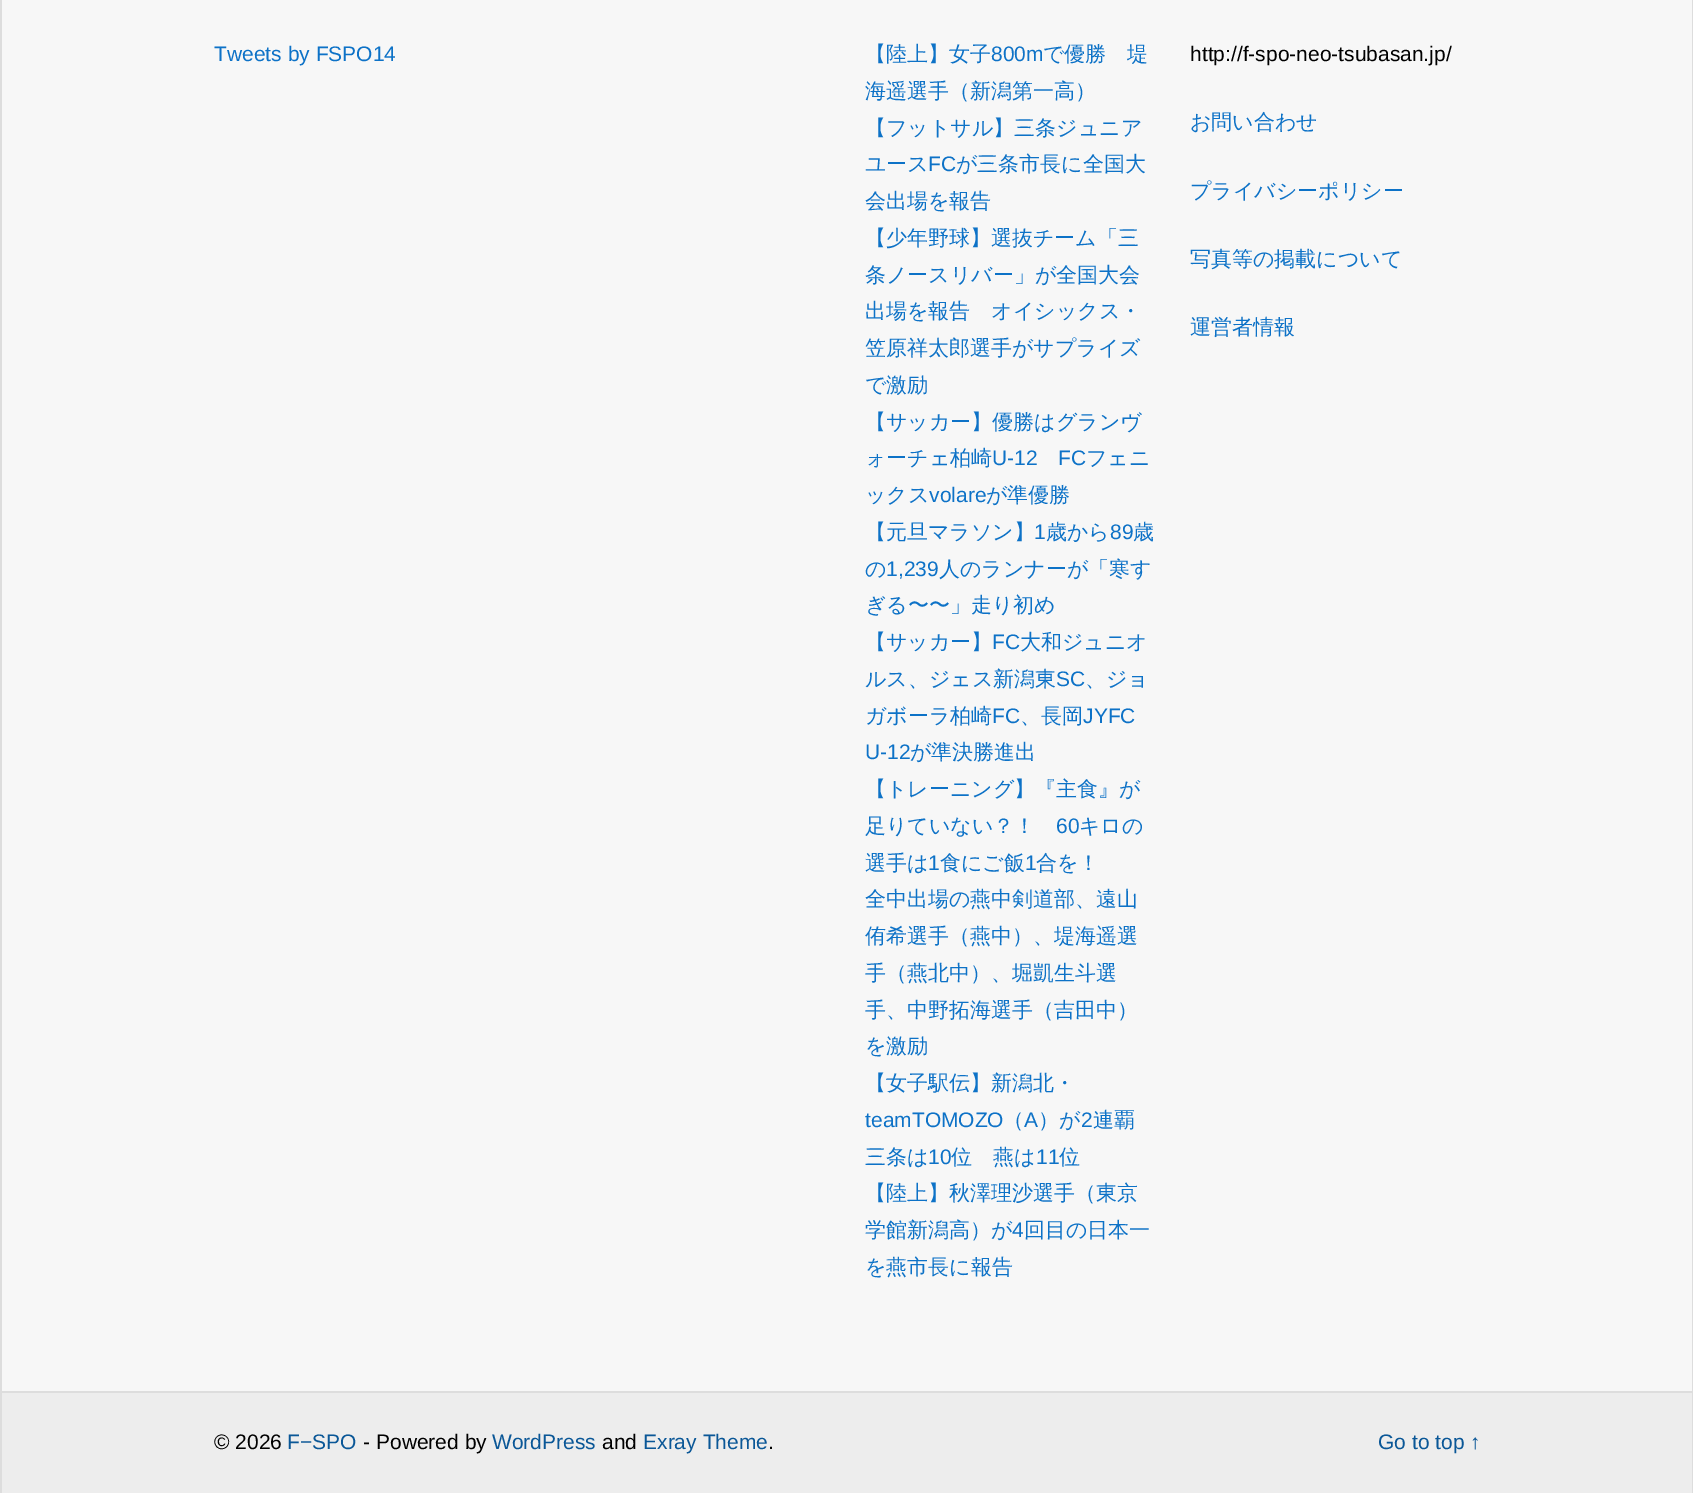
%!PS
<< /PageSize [1693 1493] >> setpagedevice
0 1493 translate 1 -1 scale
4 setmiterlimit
1 setgray
0 0 1693 1493 rectfill
0.867 setgray
2 setlinewidth
1 -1 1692 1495 rectstroke
0.969 setgray
2 0 1690 1391 rectfill
/LiberationSans-Regular [21 0 0 -21 0 0] selectfont
0.051 0.447 0.78 setrgbcolor
214 61 moveto (Tweets by FSPO14) show
/WenQuanYiZenHei-Medium [21 0 0 -21 0 0] selectfont
865 61 moveto (【陸上】女子) show
/LiberationSans-Regular [21 0 0 -21 0 0] selectfont
991 61 moveto (800m) show
/WenQuanYiZenHei-Medium [21 0 0 -21 0 0] selectfont
1043 61 moveto (で優勝　堤) show
865 98 moveto (海遥選手（新潟第一高）) show
865 135 moveto (【フットサル】三条ジュニア) show
865 171 moveto (ユース) show
/LiberationSans-Regular [21 0 0 -21 0 0] selectfont
928 171 moveto (FC) show
/WenQuanYiZenHei-Medium [21 0 0 -21 0 0] selectfont
956 171 moveto (が三条市長に全国大) show
865 208 moveto (会出場を報告) show
865 245 moveto (【少年野球】選抜チーム「三) show
865 282 moveto (条ノースリバー」が全国大会) show
865 318 moveto (出場を報告　オイシックス・) show
865 355 moveto (笠原祥太郎選手がサプライズ) show
865 392 moveto (で激励) show
865 429 moveto (【サッカー】優勝はグランヴ) show
865 465 moveto (ォーチェ柏崎) show
/LiberationSans-Regular [21 0 0 -21 0 0] selectfont
992 465 moveto (U-12) show
1058 465 moveto (FC) show
/WenQuanYiZenHei-Medium [21 0 0 -21 0 0] selectfont
1086 465 moveto (フェニ) show
865 502 moveto (ックス) show
/LiberationSans-Regular [21 0 0 -21 0 0] selectfont
929 502 moveto (volare) show
/WenQuanYiZenHei-Medium [21 0 0 -21 0 0] selectfont
986 502 moveto (が準優勝) show
865 539 moveto (【元旦マラソン】) show
/LiberationSans-Regular [21 0 0 -21 0 0] selectfont
1034 539 moveto (1) show
/WenQuanYiZenHei-Medium [21 0 0 -21 0 0] selectfont
1046 539 moveto (歳から) show
/LiberationSans-Regular [21 0 0 -21 0 0] selectfont
1110 539 moveto (89) show
/WenQuanYiZenHei-Medium [21 0 0 -21 0 0] selectfont
1133 539 moveto (歳) show
865 576 moveto (の) show
/LiberationSans-Regular [21 0 0 -21 0 0] selectfont
886 576 moveto (1,239) show
/WenQuanYiZenHei-Medium [21 0 0 -21 0 0] selectfont
939 576 moveto (人のランナーが「寒す) show
865 612 moveto (ぎる〜〜」走り初め) show
865 649 moveto (【サッカー】) show
/LiberationSans-Regular [21 0 0 -21 0 0] selectfont
992 649 moveto (FC) show
/WenQuanYiZenHei-Medium [21 0 0 -21 0 0] selectfont
1020 649 moveto (大和ジュニオ) show
865 686 moveto (ルス、ジェス新潟東) show
/LiberationSans-Regular [21 0 0 -21 0 0] selectfont
1056 686 moveto (SC) show
/WenQuanYiZenHei-Medium [21 0 0 -21 0 0] selectfont
1085 686 moveto (、ジョ) show
865 723 moveto (ガボーラ柏崎) show
/LiberationSans-Regular [21 0 0 -21 0 0] selectfont
992 723 moveto (FC) show
/WenQuanYiZenHei-Medium [21 0 0 -21 0 0] selectfont
1020 723 moveto (、長岡) show
/LiberationSans-Regular [21 0 0 -21 0 0] selectfont
1083 723 moveto (JYFC) show
865 759 moveto (U-12) show
/WenQuanYiZenHei-Medium [21 0 0 -21 0 0] selectfont
910 759 moveto (が準決勝進出) show
865 796 moveto (【トレーニング】『主食』が) show
865 833 moveto (足りていない？！) show
/LiberationSans-Regular [21 0 0 -21 0 0] selectfont
1056 833 moveto (60) show
/WenQuanYiZenHei-Medium [21 0 0 -21 0 0] selectfont
1079 833 moveto (キロの) show
865 870 moveto (選手は) show
/LiberationSans-Regular [21 0 0 -21 0 0] selectfont
928 870 moveto (1) show
/WenQuanYiZenHei-Medium [21 0 0 -21 0 0] selectfont
940 870 moveto (食にご飯) show
/LiberationSans-Regular [21 0 0 -21 0 0] selectfont
1025 870 moveto (1) show
/WenQuanYiZenHei-Medium [21 0 0 -21 0 0] selectfont
1036 870 moveto (合を！) show
865 906 moveto (全中出場の燕中剣道部、遠山) show
865 943 moveto (侑希選手（燕中）、堤海遥選) show
865 980 moveto (手（燕北中）、堀凱生斗選) show
865 1017 moveto (手、中野拓海選手（吉田中）) show
865 1053 moveto (を激励) show
865 1090 moveto (【女子駅伝】新潟北・) show
/LiberationSans-Regular [21 0 0 -21 0 0] selectfont
865 1127 moveto (teamTOMOZO) show
/WenQuanYiZenHei-Medium [21 0 0 -21 0 0] selectfont
1003 1127 moveto (（) show
/LiberationSans-Regular [21 0 0 -21 0 0] selectfont
1024 1127 moveto (A) show
/WenQuanYiZenHei-Medium [21 0 0 -21 0 0] selectfont
1038 1127 moveto (）が) show
/LiberationSans-Regular [21 0 0 -21 0 0] selectfont
1081 1127 moveto (2) show
/WenQuanYiZenHei-Medium [21 0 0 -21 0 0] selectfont
1093 1127 moveto (連覇) show
865 1164 moveto (三条は) show
/LiberationSans-Regular [21 0 0 -21 0 0] selectfont
928 1164 moveto (10) show
/WenQuanYiZenHei-Medium [21 0 0 -21 0 0] selectfont
951 1164 moveto (位　燕は) show
/LiberationSans-Regular [21 0 0 -21 0 0] selectfont
1036 1164 moveto (11) show
/WenQuanYiZenHei-Medium [21 0 0 -21 0 0] selectfont
1059 1164 moveto (位) show
865 1200 moveto (【陸上】秋澤理沙選手（東京) show
865 1237 moveto (学館新潟高）が) show
/LiberationSans-Regular [21 0 0 -21 0 0] selectfont
1012 1237 moveto (4) show
/WenQuanYiZenHei-Medium [21 0 0 -21 0 0] selectfont
1024 1237 moveto (回目の日本一) show
865 1274 moveto (を燕市長に報告) show
/LiberationSans-Regular [21 0 0 -21 0 0] selectfont
0 setgray
1190 61 moveto (http://f-spo-neo-tsubasan.jp/) show
/WenQuanYiZenHei-Medium [21 0 0 -21 0 0] selectfont
0.051 0.447 0.78 setrgbcolor
1190 129 moveto (お問い合わせ) show
1190 198 moveto (プライバシーポリシー) show
1190 266 moveto (写真等の掲載について) show
1190 334 moveto (運営者情報) show
0.929 setgray
2 1393 1690 100 rectfill
0.867 setgray
2 1391 1690 2 rectfill
/LiberationSans-Regular [21 0 0 -21 0 0] selectfont
0 setgray
214 1449 moveto (© 2026) show
0.039 0.341 0.592 setrgbcolor
287 1449 moveto (F−SPO) show
0 setgray
363 1449 moveto (- Powered by) show
0.039 0.341 0.592 setrgbcolor
492 1449 moveto (WordPress) show
0 setgray
602 1449 moveto (and) show
0.039 0.341 0.592 setrgbcolor
643 1449 moveto (Exray Theme) show
0 setgray
768 1449 moveto (.) show
0.039 0.341 0.592 setrgbcolor
1378 1449 moveto (Go to top ↑) show
showpage
